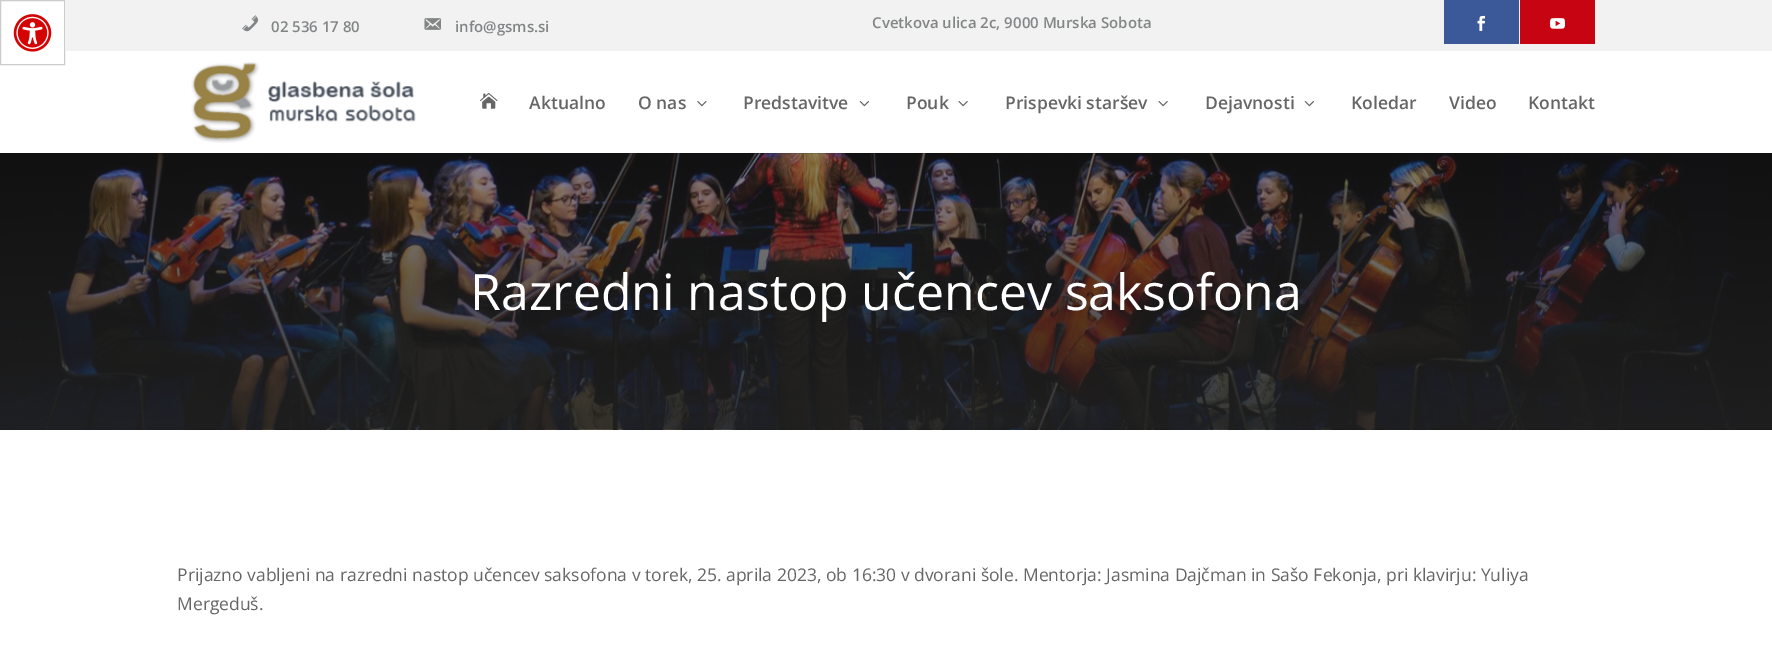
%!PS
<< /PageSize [1772 671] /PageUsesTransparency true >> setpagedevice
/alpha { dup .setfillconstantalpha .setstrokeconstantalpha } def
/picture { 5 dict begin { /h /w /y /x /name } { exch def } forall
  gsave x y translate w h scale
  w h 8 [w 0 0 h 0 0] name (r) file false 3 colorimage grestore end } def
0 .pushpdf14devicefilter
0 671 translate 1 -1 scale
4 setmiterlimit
1 setgray
0 0 1772 671 rectfill
0.8 setgray
0.5 0.5 64 64 rectstroke
(img1.rgb) 13 14 39 38 picture
0.949 setgray
65 0 1707 51 rectfill
(img2.rgb) 242 15 17 17 picture
/OpenSans-SemiBold [15 0 0 -15 0 0] selectfont
0.51 0.522 0.525 setrgbcolor
271 32 moveto (02 536 17 80) show
(img3.rgb) 424 18 17 12 picture
455 32 moveto (info@gsms.si) show
872 28 moveto (Cvetkova ulica 2c, 9000 Murska Sobota) show
0.231 0.349 0.596 setrgbcolor
1444 0 75 44 rectfill
(img4.rgb) 1477 15 8 16 picture
0.78 0.016 0.067 setrgbcolor
1520 0 75 44 rectfill
(img5.rgb) 1550 18 15 11 picture
(img11.rgb) 0 153 1772 277 picture
0.1 alpha
0 setgray
newpath 0 152 moveto 0 154 lineto 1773 154 lineto 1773 53 lineto 1772 53 lineto 1772 152 lineto closepath fill
1 alpha
1 setgray
0 152 1772 1 rectfill
(img6.rgb) 191 62 225 81 picture
(img7.rgb) 480 93 18 16 picture
/OpenSans-SemiBold [17.5 0 0 -17.5 0 0] selectfont
0.4 setgray
529 109 moveto (Aktualno) show
638 109 moveto (O nas) show
(img8.rgb) 697 101 10 6 picture
743 109 moveto (Predstavitve) show
(img9.rgb) 859 101 10 6 picture
906 109 moveto (Pouk) show
(img10.rgb) 958 101 10 6 picture
1005 109 moveto (Prispevki staršev) show
(img10.rgb) 1158 101 10 6 picture
1205 109 moveto (Dejavnosti) show
(img9.rgb) 1304 101 10 6 picture
1351 109 moveto (Koledar) show
1449 109 moveto (Video) show
1528 109 moveto (Kontakt) show
/OpenSans-Regular [50 0 0 -50 0 0] selectfont
1 setgray
470 310 moveto (Razredni nastop učencev saksofona) show
/OpenSans-Regular [17.5 0 0 -17.5 0 0] selectfont
0.4 setgray
177 581 moveto (Prijazno vabljeni na razredni nastop učencev saksofona v torek, 25. aprila 2023, ob 16:30 v dvorani šole. Mentorja: Jasmina Dajčman in Sašo Fekonja, pri klavirju: Yuliya) show
177 610 moveto (Mergeduš.) show
.poppdf14devicefilter showpage
